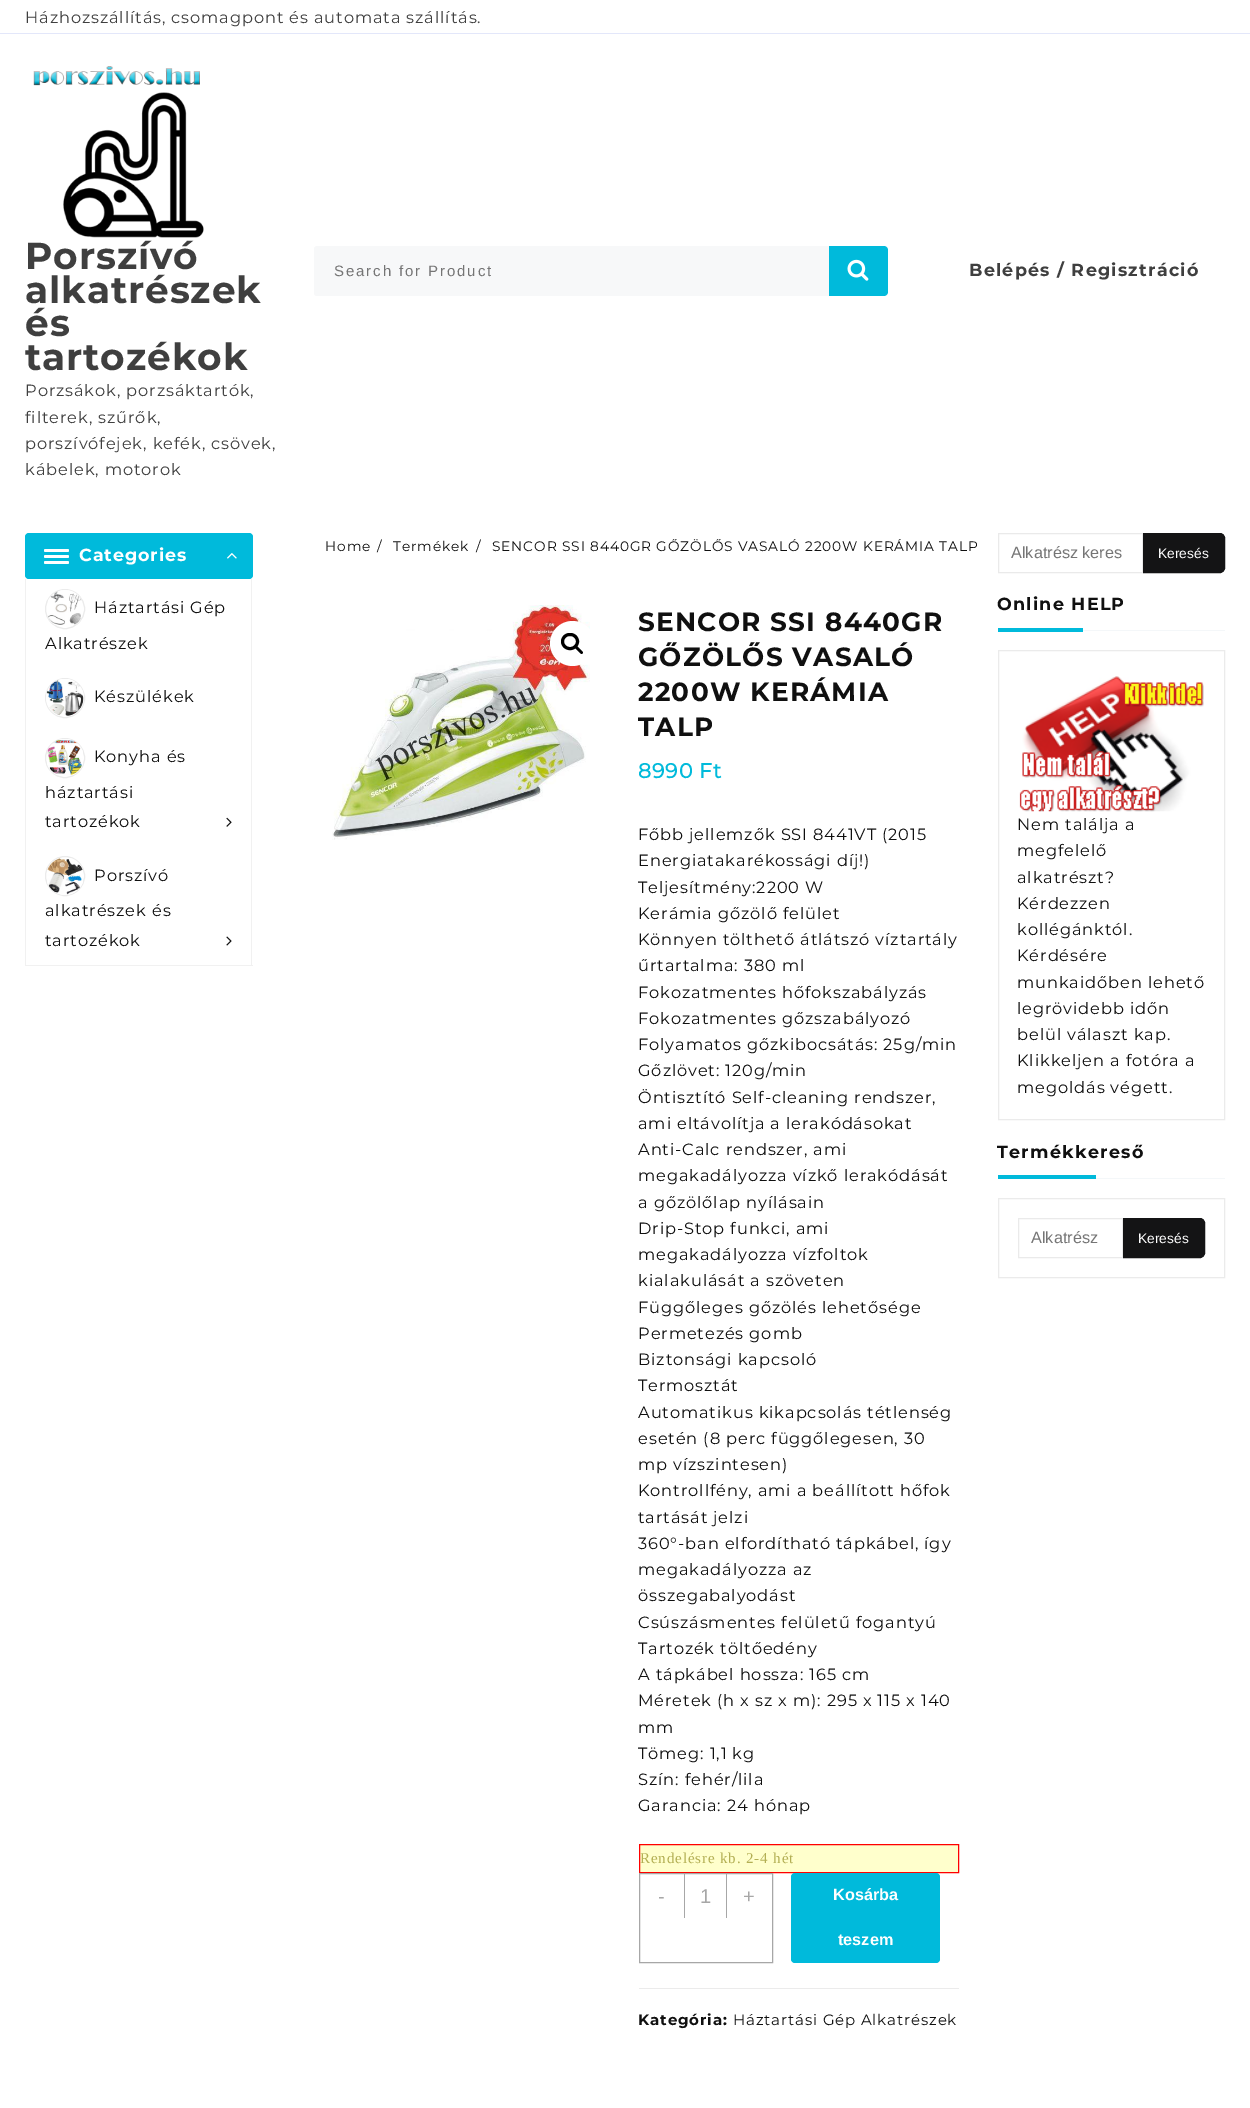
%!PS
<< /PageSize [1250 2108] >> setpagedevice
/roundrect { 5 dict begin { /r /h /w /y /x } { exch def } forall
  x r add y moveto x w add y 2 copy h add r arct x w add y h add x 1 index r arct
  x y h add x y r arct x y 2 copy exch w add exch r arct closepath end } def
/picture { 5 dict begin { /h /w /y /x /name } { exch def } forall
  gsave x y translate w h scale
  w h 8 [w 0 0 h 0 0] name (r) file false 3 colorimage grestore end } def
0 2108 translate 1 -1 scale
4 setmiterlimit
1 setgray
0 0 1250 2108 rectfill
0.89 0.906 0.98 setrgbcolor
0 33 1250 1 rectfill
/Montserrat-Regular [16.25 0 0 -16.25 0 0] selectfont
0.247 setgray
25 23 moveto 0.88 0 (Házhozszállítás, csomagpont és automata szállítás.) ashow
(img1.rgb) 33 66 171 172 picture
/Montserrat-Bold [37.5 0 0 -37.5 0 0] selectfont
25 269 moveto 0.88 0 (Porszívó) ashow
25 303 moveto 0.88 0 (alkatrészek) ashow
25 336 moveto 0.88 0 (és) ashow
25 370 moveto 0.88 0 (tartozékok) ashow
/Montserrat-Regular [16.25 0 0 -16.25 0 0] selectfont
25 396 moveto 0.88 0 (Porzsákok, porzsáktartók,) ashow
25 423 moveto 0.88 0 (filterek, szűrők,) ashow
25 449 moveto 0.88 0 (porszívófejek, kefék, csövek,) ashow
25 475 moveto 0.88 0 (kábelek, motorok) ashow
0.969 0.973 0.976 setrgbcolor
newpath 318 246 moveto 829 246 lineto 829 296 lineto 318 296 lineto 316 296 314 294 314 292 curveto 314 250 lineto 314 248 316 246 318 246 curveto closepath fill
newpath 318 246 moveto 829 246 lineto 829 296 lineto 318 296 lineto 315 296 314 295 314 292 curveto 314 250 lineto 314 248 315 246 318 246 curveto closepath 318 248 moveto 829 248 lineto 829 295 lineto 318 295 lineto 316 295 315 294 315 292 curveto 315 250 lineto 315 249 316 248 318 248 curveto closepath eofill
/LiberationSans-Regular [15 0 0 -15 0 0] selectfont
0.459 setgray
334 276 moveto 1.9 0 (Search for Product) ashow
0 0.729 0.859 setrgbcolor
newpath 829 246 moveto 884 246 lineto 886 246 888 248 888 250 curveto 888 292 lineto 888 294 886 296 884 296 curveto 829 296 lineto closepath fill
(img2.rgb) 847 259 22 22 picture
/Montserrat-Bold [17.5 0 0 -17.5 0 0] selectfont
0.247 setgray
969 276 moveto 1.25 0 (Belépés / Regisztráció) ashow
0 0.729 0.859 setrgbcolor
25 533 228 46 4 roundrect fill
1 setgray
44 549 25 3 1.5 roundrect fill
44 555 25 3 1.5 roundrect fill
44 561 25 3 1.5 roundrect fill
79 561 moveto 0.88 0 (Categories) ashow
(img3.rgb) 227 553 10 6 picture
0.945 setgray
251 579 1 387 rectfill
25 965 228 1 rectfill
25 579 1 387 rectfill
0.922 setgray
newpath 65 609 19.5 0 360 arc closepath stroke
(img4.rgb) 48 590 33 35 picture
/Montserrat-Regular [16.25 0 0 -16.25 0 0] selectfont
0.063 setgray
94 613 moveto 0.88 0 (Háztartási Gép) ashow
45 649 moveto 0.88 0 (Alkatrészek) ashow
0.922 setgray
newpath 65 698 19.5 0 360 arc closepath stroke
(img5.rgb) 46 679 38 37 picture
0.063 setgray
94 702 moveto 0.88 0 (Készülékek) ashow
0.922 setgray
newpath 65 758 19.5 0 360 arc closepath stroke
(img6.rgb) 47 739 36 36 picture
0.063 setgray
94 762 moveto 0.88 0 (Konyha és) ashow
45 798 moveto 0.88 0 (háztartási) ashow
45 827 moveto 0.88 0 (tartozékok) ashow
(img7.rgb) 226 817 6 10 picture
0.922 setgray
newpath 65 876 19.5 0 360 arc closepath stroke
(img8.rgb) 47 858 36 37 picture
0.063 setgray
94 881 moveto 0.88 0 (Porszívó) ashow
45 916 moveto 0.88 0 (alkatrészek és) ashow
45 946 moveto 0.88 0 (tartozékok) ashow
(img9.rgb) 226 936 6 10 picture
/Montserrat-Regular [13.75 0 0 -13.75 0 0] selectfont
325 551 moveto 0.88 0 (Home) ashow
377 551 moveto 0.88 0 (/) ashow
393 551 moveto 0.88 0 (Termékek) ashow
476 551 moveto 0.88 0 (/) ashow
492 551 moveto 0.88 0 (SENCOR SSI 8440GR GŐZÖLŐS VASALÓ 2200W KERÁMIA TALP) ashow
(img10.rgb) 332 605 258 235 picture
1 setgray
newpath 572.5 643.5 22.5 0 360 arc closepath fill
0 setgray
3 setlinewidth
562.5 634.5 15 14 7 roundrect stroke
newpath 575.5 646.5 moveto 577 645 579 648.5 580 649 curveto 580.5 650 584 652 582.5 653.5 curveto 581 655 579 651.5 578 651 curveto 577.5 650 574 648 575.5 646.5 curveto closepath fill
/Montserrat-Bold [26.25 0 0 -26.25 0 0] selectfont
0.063 setgray
638 631 moveto 1.25 0 (SENCOR SSI 8440GR) ashow
638 666 moveto 1.25 0 (GŐZÖLŐS VASALÓ) ashow
638 701 moveto 1.25 0 (2200W KERÁMIA) ashow
638 736 moveto 1.25 0 (TALP) ashow
/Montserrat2-Bold [20.5 0 0 -20.5 0 0] selectfont
0 0.729 0.859 setrgbcolor
638 778 moveto 0.88 0 (8990 Ft) ashow
/Montserrat-Regular [16.25 0 0 -16.25 0 0] selectfont
0.063 setgray
638 840 moveto 0.88 0 (Főbb jellemzők SSI 8441VT \(2015) ashow
638 866 moveto 0.88 0 (Energiatakarékossági díj!\)) ashow
638 893 moveto 0.88 0 (Teljesítmény:2200 W) ashow
638 919 moveto 0.88 0 (Kerámia gőzölő felület) ashow
638 945 moveto 0.88 0 (Könnyen tölthető átlátszó víztartály) ashow
638 971 moveto 0.88 0 (űrtartalma: 380 ml) ashow
638 998 moveto 0.88 0 (Fokozatmentes hőfokszabályzás) ashow
638 1024 moveto 0.88 0 (Fokozatmentes gőzszabályozó) ashow
638 1050 moveto 0.88 0 (Folyamatos gőzkibocsátás: 25g/min) ashow
638 1076 moveto 0.88 0 (Gőzlövet: 120g/min) ashow
638 1103 moveto 0.88 0 (Öntisztító Self-cleaning rendszer,) ashow
638 1129 moveto 0.88 0 (ami eltávolítja a lerakódásokat) ashow
638 1155 moveto 0.88 0 (Anti-Calc rendszer, ami) ashow
638 1181 moveto 0.88 0 (megakadályozza vízkő lerakódását) ashow
638 1208 moveto 0.88 0 (a gőzölőlap nyílásain) ashow
638 1234 moveto 0.88 0 (Drip-Stop funkci, ami) ashow
638 1260 moveto 0.88 0 (megakadályozza vízfoltok) ashow
638 1286 moveto 0.88 0 (kialakulását a szöveten) ashow
638 1313 moveto 0.88 0 (Függőleges gőzölés lehetősége) ashow
638 1339 moveto 0.88 0 (Permetezés gomb) ashow
638 1365 moveto 0.88 0 (Biztonsági kapcsoló) ashow
638 1391 moveto 0.88 0 (Termosztát) ashow
638 1418 moveto 0.88 0 (Automatikus kikapcsolás tétlenség) ashow
638 1444 moveto 0.88 0 (esetén \(8 perc függőlegesen, 30) ashow
638 1470 moveto 0.88 0 (mp vízszintesen\)) ashow
638 1496 moveto 0.88 0 (Kontrollfény, ami a beállított hőfok) ashow
638 1523 moveto 0.88 0 (tartását jelzi) ashow
638 1549 moveto 0.88 0 (360°-ban elfordítható tápkábel, így) ashow
638 1575 moveto 0.88 0 (megakadályozza az) ashow
638 1601 moveto 0.88 0 (összegabalyodást) ashow
638 1628 moveto 0.88 0 (Csúszásmentes felületű fogantyú) ashow
638 1654 moveto 0.88 0 (Tartozék töltőedény) ashow
638 1680 moveto 0.88 0 (A tápkábel hossza: 165 cm) ashow
638 1706 moveto 0.88 0 (Méretek \(h x sz x m\): 295 x 115 x 140) ashow
638 1733 moveto 0.88 0 (mm) ashow
638 1759 moveto 0.88 0 (Tömeg: 1,1 kg) ashow
638 1785 moveto 0.88 0 (Szín: fehér/lila) ashow
638 1811 moveto 0.88 0 (Garancia: 24 hónap) ashow
1 1 0.8 setrgbcolor
newpath 639.5 1844.5 moveto 958.5 1844.5 lineto 958.5 1872.5 lineto 639.5 1872.5 lineto closepath gsave fill grestore
1 0 0 setrgbcolor
1 setlinewidth
stroke
/LiberationSerif-Regular [15 0 0 -15 0 0] selectfont
0.702 0.686 0.329 setrgbcolor
640 1863 moveto 0.88 0 (Rendelésre kb. 2-4 hét) ashow
0.655 setgray
639.5 1873.5 133 89 rectstroke
/LiberationSans-Regular [20 0 0 -20 0 0] selectfont
658 1903 moveto (-) show
726 1874 1 44 rectfill
684 1874 1 44 rectfill
700 1903 moveto (1) show
743 1903 moveto (+) show
0 0.729 0.859 setrgbcolor
791 1873 149 90 4 roundrect fill
/LiberationSans-Bold [16.25 0 0 -16.25 0 0] selectfont
1 setgray
833 1900 moveto (Kosárba) show
838 1945 moveto (teszem) show
0.922 setgray
639 1988 320 1 rectfill
/Montserrat-Bold [15 0 0 -15 0 0] selectfont
0.063 setgray
638 2025 moveto 0.88 0 (Kategória:) ashow
/Montserrat-Regular [15 0 0 -15 0 0] selectfont
733 2025 moveto 0.88 0 (Háztartási Gép Alkatrészek) ashow
0.918 setgray
998.5 533.5 144 39 rectstroke
/LiberationSans-Regular [16.25 0 0 -16.25 0 0] selectfont
0.459 setgray
1011 558 moveto (Alkatrész keres) show
0.078 0.078 0.082 setrgbcolor
newpath 1143.5 533.5 moveto 1220 533.5 lineto 1222.5 533.5 1224.5 535.5 1224.5 538 curveto 1224.5 568 lineto 1224.5 570.5 1222.5 572.5 1220 572.5 curveto 1143.5 572.5 lineto closepath gsave fill grestore
stroke
/LiberationSans-Regular [13.75 0 0 -13.75 0 0] selectfont
1 setgray
1158 558 moveto (Keresés) show
0.957 0.969 0.976 setrgbcolor
1083 630 142 1 rectfill
/Montserrat-Bold [17.5 0 0 -17.5 0 0] selectfont
0.063 setgray
997 610 moveto 1.25 0 (Online HELP) ashow
0 0.729 0.859 setrgbcolor
998 628 85 4 rectfill
0.922 setgray
998.5 650.5 226 469 rectstroke
(img11.rgb) 1019 676 185 136 picture
/Montserrat-Regular [16.25 0 0 -16.25 0 0] selectfont
0.063 setgray
1017 830 moveto 0.88 0 (Nem találja a) ashow
1017 856 moveto 0.88 0 (megfelelő) ashow
1017 883 moveto 0.88 0 (alkatrészt?) ashow
1017 909 moveto 0.88 0 (Kérdezzen) ashow
1017 935 moveto 0.88 0 (kollégánktól.) ashow
1017 961 moveto 0.88 0 (Kérdésére) ashow
1017 988 moveto 0.88 0 (munkaidőben lehető) ashow
1017 1014 moveto 0.88 0 (legrövidebb időn) ashow
1017 1040 moveto 0.88 0 (belül választ kap.) ashow
1017 1066 moveto 0.88 0 (Klikkeljen a fotóra a) ashow
1017 1093 moveto 0.88 0 (megoldás végett.) ashow
0.957 0.969 0.976 setrgbcolor
1096 1178 129 1 rectfill
/Montserrat-Bold [17.5 0 0 -17.5 0 0] selectfont
0.063 setgray
997 1158 moveto 1.25 0 (Termékkereső) ashow
0 0.729 0.859 setrgbcolor
998 1175 98 4 rectfill
0.922 setgray
998.5 1198.5 226 79 rectstroke
0.918 setgray
1018.5 1218.5 104 39 rectstroke
/LiberationSans-Regular [16.25 0 0 -16.25 0 0] selectfont
0.459 setgray
1031 1243 moveto (Alkatrész) show
0.078 0.078 0.082 setrgbcolor
newpath 1123.5 1218.5 moveto 1200 1218.5 lineto 1202.5 1218.5 1204.5 1220.5 1204.5 1223 curveto 1204.5 1253 lineto 1204.5 1255.5 1202.5 1257.5 1200 1257.5 curveto 1123.5 1257.5 lineto closepath gsave fill grestore
stroke
/LiberationSans-Regular [13.75 0 0 -13.75 0 0] selectfont
1 setgray
1138 1243 moveto (Keresés) show
showpage
